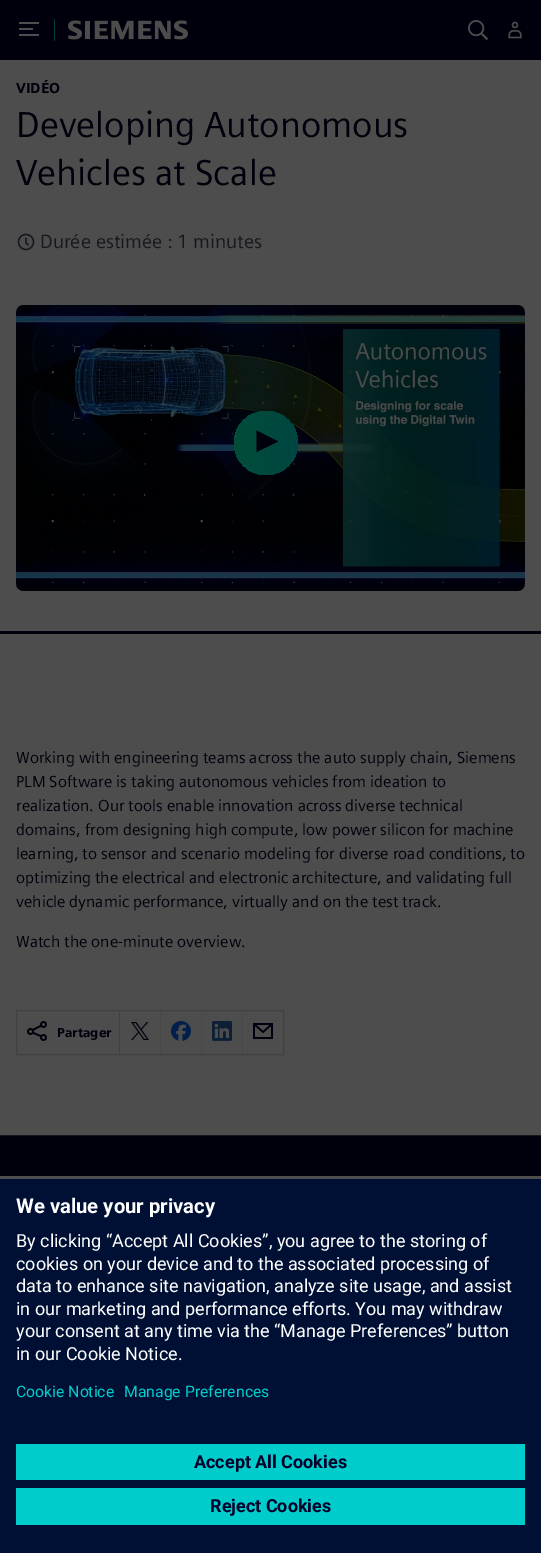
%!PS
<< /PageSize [541 1553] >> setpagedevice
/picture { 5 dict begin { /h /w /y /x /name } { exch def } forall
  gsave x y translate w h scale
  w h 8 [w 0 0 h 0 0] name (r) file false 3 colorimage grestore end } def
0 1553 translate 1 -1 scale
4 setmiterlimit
0.302 setgray
0 0 541 1553 rectfill
0 0 0.047 setrgbcolor
0 0 541 60 rectfill
0.302 setgray
19 28 14 2 rectfill
19 22 20 2 rectfill
19 34 20 2 rectfill
0 0.239 0.239 setrgbcolor
54 19 1 22 rectfill
(img1.rgb) 68 20 120 20 picture
(img2.rgb) 468 20 20 20 picture
(img3.rgb) 508 21 14 18 picture
0 0 0.047 setrgbcolor
0 631 541 3 rectfill
/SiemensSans-Black [14.5 0 0 -14.5 0 0] selectfont
16 93 moveto (VIDÉO) show
/SiemensSans-Regular [36 0 0 -36 0 0] selectfont
16 137 moveto (Developing Autonomous) show
16 185 moveto (Vehicles at Scale) show
(img4.rgb) 17 233 18 18 picture
/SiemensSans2-Regular [19.25 0 0 -19.25 0 0] selectfont
0.09 0.09 0.122 setrgbcolor
40 248 moveto (Durée estimée : 1 minutes) show
(img5.rgb) 16 305 509 286 picture
gsave newpath 266 443 32 0 360 arc closepath clip newpath
<< /ShadingType 2 /ColorSpace /DeviceRGB /Coords [234 443 298 443] /Extend [true true] /Function << /FunctionType 3 /Domain [0 1] /Functions [<< /FunctionType 2 /Domain [0 1] /C0 [0 0.302 0.22] /C1 [0 0.298 0.22] /N 1 >> << /FunctionType 2 /Domain [0 1] /C0 [0 0.298 0.22] /C1 [0 0.294 0.227] /N 1 >> << /FunctionType 2 /Domain [0 1] /C0 [0 0.294 0.227] /C1 [0 0.29 0.231] /N 1 >> << /FunctionType 2 /Domain [0 1] /C0 [0 0.29 0.231] /C1 [0 0.29 0.235] /N 1 >> << /FunctionType 2 /Domain [0 1] /C0 [0 0.29 0.235] /C1 [0 0.286 0.239] /N 1 >> << /FunctionType 2 /Domain [0 1] /C0 [0 0.286 0.239] /C1 [0 0.282 0.243] /N 1 >> << /FunctionType 2 /Domain [0 1] /C0 [0 0.282 0.243] /C1 [0 0.278 0.247] /N 1 >> << /FunctionType 2 /Domain [0 1] /C0 [0 0.278 0.247] /C1 [0 0.278 0.251] /N 1 >> << /FunctionType 2 /Domain [0 1] /C0 [0 0.278 0.251] /C1 [0 0.275 0.255] /N 1 >> << /FunctionType 2 /Domain [0 1] /C0 [0 0.275 0.255] /C1 [0 0.271 0.259] /N 1 >>] /Bounds [0.1 0.2 0.3 0.4 0.5 0.6 0.7 0.8 0.9] /Encode [0 1 0 1 0 1 0 1 0 1 0 1 0 1 0 1 0 1 0 1] >> >> shfill grestore
0 0 0.047 setrgbcolor
newpath 256.5 430.5 moveto 278 441.5 lineto 256.5 452 lineto closepath fill
/SiemensSans2-Regular [16 0 0 -16 0 0] selectfont
16 763 moveto (Working with engineering teams across the auto supply chain, Siemens) show
16 787 moveto (PLM Software is taking autonomous vehicles from ideation to) show
16 811 moveto (realization. Our tools enable innovation across diverse technical) show
16 835 moveto (domains, from designing high compute, low power silicon for machine) show
16 859 moveto (learning, to sensor and scenario modeling for diverse road conditions, to) show
16 883 moveto (optimizing the electrical and electronic architecture, and validating full) show
16 907 moveto (vehicle dynamic performance, virtually and on the test track.) show
16 947 moveto (Watch the one-minute overview.) show
0.255 0.255 0.263 setrgbcolor
16.5 1010.5 267 44 rectstroke
119 1011 1 43 rectfill
(img6.rgb) 27 1021 20 20 picture
/SiemensSans-Black [13 0 0 -13 0 0] selectfont
0 0 0.047 setrgbcolor
57 1037 moveto (Partager) show
(img7.rgb) 131 1022 18 18 picture
0.278 0.282 0.29 setrgbcolor
160 1011 1 43 rectfill
(img8.rgb) 171 1021 20 20 picture
201 1011 1 43 rectfill
(img9.rgb) 212 1021 20 20 picture
242 1011 1 43 rectfill
(img10.rgb) 253 1023 20 16 picture
0 0 0.047 setrgbcolor
0 1136 541 40 rectfill
0.09 0.09 0.122 setrgbcolor
0 1135 541 1 rectfill
0 0.063 0.204 setrgbcolor
0 1179 541 374 rectfill
/Roboto-Bold [20.25 0 0 -20.25 0 0] selectfont
1 setgray
16 1213 moveto (We value your privacy) show
/Roboto-Regular [18 0 0 -18 0 0] selectfont
16 1247 moveto (By clicking “Accept All Cookies”, you agree to the storing of) show
16 1270 moveto (cookies on your device and to the associated processing of) show
16 1292 moveto (data to enhance site navigation, analyze site usage, and assist) show
16 1315 moveto (in our marketing and performance efforts. You may withdraw) show
16 1337 moveto (your consent at any time via the “Manage Preferences” button) show
16 1360 moveto (in our Cookie Notice.) show
/Roboto-Regular [15.75 0 0 -15.75 0 0] selectfont
0 0.8 0.8 setrgbcolor
16 1397 moveto (Cookie Notice) show
124 1397 moveto (Manage Preferences) show
16 1444 509 36 rectfill
/Roboto-Bold [18 0 0 -18 0 0] selectfont
0 0 0.157 setrgbcolor
194 1468 moveto (Accept All Cookies) show
0 0.8 0.8 setrgbcolor
16 1488 509 37 rectfill
0 0 0.157 setrgbcolor
210 1512 moveto (Reject Cookies) show
showpage
